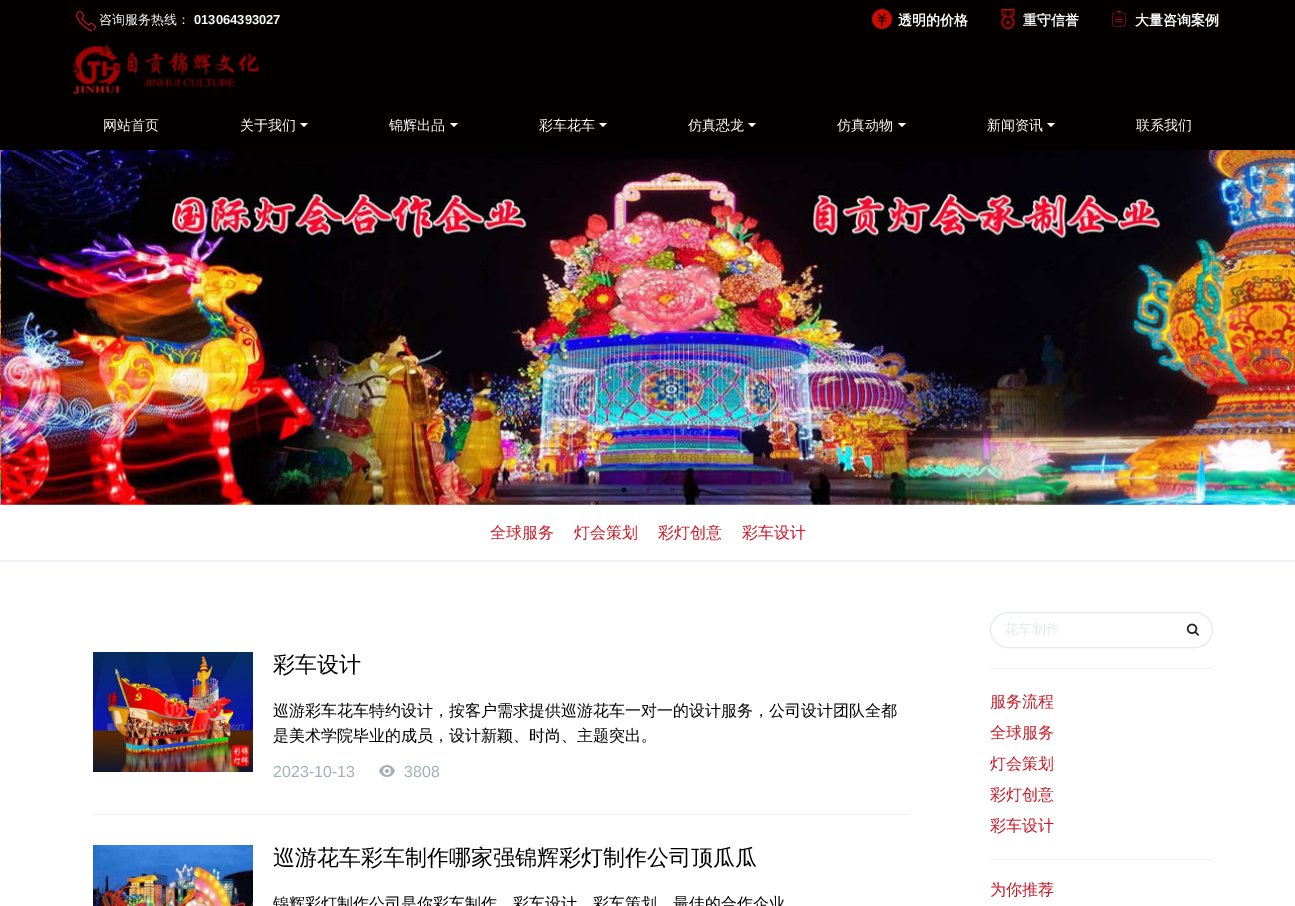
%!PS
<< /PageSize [1295 906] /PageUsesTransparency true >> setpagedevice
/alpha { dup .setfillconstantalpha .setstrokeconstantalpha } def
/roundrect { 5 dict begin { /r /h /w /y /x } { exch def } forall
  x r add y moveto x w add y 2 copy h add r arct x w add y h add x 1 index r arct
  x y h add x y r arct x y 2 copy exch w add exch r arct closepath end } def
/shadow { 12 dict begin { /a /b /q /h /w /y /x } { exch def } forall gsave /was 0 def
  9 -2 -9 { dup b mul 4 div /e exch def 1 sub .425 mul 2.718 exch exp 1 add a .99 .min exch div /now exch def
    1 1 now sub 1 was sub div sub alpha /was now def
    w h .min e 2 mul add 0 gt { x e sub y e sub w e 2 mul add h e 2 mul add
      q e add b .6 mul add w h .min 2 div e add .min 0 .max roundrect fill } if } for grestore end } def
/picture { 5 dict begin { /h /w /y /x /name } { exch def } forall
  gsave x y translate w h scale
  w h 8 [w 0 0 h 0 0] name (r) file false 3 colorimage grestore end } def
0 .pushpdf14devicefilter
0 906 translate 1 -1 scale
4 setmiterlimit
1 setgray
0 0 1295 906 rectfill
0.02 0 0 setrgbcolor
0 40 1295 110 rectfill
(img6.rgb) 0 150 1 355 picture
(img7.rgb) 1 150 1294 355 picture
gsave
newpath 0 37 moveto 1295 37 lineto 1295 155 lineto 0 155 lineto closepath 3 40 moveto 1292 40 lineto 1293.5 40 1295 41.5 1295 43 curveto 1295 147 lineto 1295 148.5 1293.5 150 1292 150 curveto 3 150 lineto 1.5 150 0 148.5 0 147 curveto 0 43 lineto 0 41.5 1.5 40 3 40 curveto closepath eoclip newpath
0 setgray
0 41 1295 110 3 1 0.1 shadow
grestore
0 0 1295 40 rectfill
(img1.rgb) 76 11 20 20 picture
/WenQuanYiZenHei-Medium [13 0 0 -13 0 0] selectfont
1 setgray
99 24 moveto (咨询服务热线：) show
/LiberationSans-Bold [13 0 0 -13 0 0] selectfont
0.969 setgray
194 24 moveto (013064393027) show
(img2.rgb) 872 9 20 20 picture
/WenQuanYiZenHei-Bold [14 0 0 -14 0 0] selectfont
1 setgray
898 25 moveto (透明的价格) show
(img3.rgb) 1001 9 14 20 picture
1023 25 moveto (重守信誉) show
(img4.rgb) 1112 11 14 16 picture
1135 25 moveto (大量咨询案例) show
(img5.rgb) 73 45 187 50 picture
/WenQuanYiZenHei-Medium [14 0 0 -14 0 0] selectfont
103 130 moveto (网站首页) show
240 130 moveto (关于我们) show
newpath 300 123 moveto 308 123 lineto 304 127 lineto closepath fill
389 130 moveto (锦辉出品) show
newpath 450 123 moveto 458 123 lineto 454 127 lineto closepath fill
539 130 moveto (彩车花车) show
newpath 599 123 moveto 607 123 lineto 603 127 lineto closepath fill
688 130 moveto (仿真恐龙) show
newpath 748 123 moveto 756 123 lineto 752 127 lineto closepath fill
837 130 moveto (仿真动物) show
newpath 898 123 moveto 906 123 lineto 902 127 lineto closepath fill
987 130 moveto (新闻资讯) show
newpath 1047 123 moveto 1055 123 lineto 1051 127 lineto closepath fill
1136 130 moveto (联系我们) show
(img8.rgb) 621 487 6 6 picture
(img9.rgb) 645 487 6 6 picture
(img10.rgb) 669 487 6 6 picture
/WenQuanYiZenHei-Medium [16 0 0 -16 0 0] selectfont
0.784 0.086 0.141 setrgbcolor
490 538 moveto (全球服务) show
574 538 moveto (灯会策划) show
658 538 moveto (彩灯创意) show
742 538 moveto (彩车设计) show
0.941 0.949 0.961 setrgbcolor
0 560 1295 2 rectfill
93 814 817 1 rectfill
(img11.rgb) 93 652 160 120 picture
/WenQuanYiZenHei-Medium [22 0 0 -22 0 0] selectfont
0 setgray
273 672 moveto (彩车设计) show
/WenQuanYiZenHei-Medium [16 0 0 -16 0 0] selectfont
273 716 moveto (巡游彩车花车特约设计，按客户需求提供巡游花车一对一的设计服务，公司设计团队全都) show
273 741 moveto (是美术学院毕业的成员，设计新颖、时尚、主题突出。) show
/LiberationSans-Regular [16 0 0 -16 0 0] selectfont
0.639 0.686 0.718 setrgbcolor
273 777 moveto (2023-10-13) show
(img12.rgb) 379 765 16 12 picture
404 777 moveto (3808) show
(img13.rgb) 93 845 160 61 picture
/WenQuanYiZenHei-Medium [22 0 0 -22 0 0] selectfont
0 setgray
273 865 moveto (巡游花车彩车制作哪家强锦辉彩灯制作公司顶瓜瓜) show
/WenQuanYiZenHei-Medium [16 0 0 -16 0 0] selectfont
273 909 moveto (锦辉彩灯制作公司是你彩车制作，彩车设计，彩车策划，最佳的合作企业) show
0.894 0.918 0.925 setrgbcolor
990.5 612.5 222 35 17.5 roundrect stroke
/WenQuanYiZenHei-Medium [14 0 0 -14 0 0] selectfont
1004 634 moveto (花车制作) show
(img14.rgb) 1186 623 14 13 picture
0.941 0.949 0.961 setrgbcolor
990 668 223 1 rectfill
/WenQuanYiZenHei-Medium [16 0 0 -16 0 0] selectfont
0.784 0.086 0.141 setrgbcolor
990 707 moveto (服务流程) show
990 738 moveto (全球服务) show
990 769 moveto (灯会策划) show
990 800 moveto (彩灯创意) show
990 831 moveto (彩车设计) show
0.941 0.949 0.961 setrgbcolor
990 859 223 1 rectfill
0.784 0.086 0.141 setrgbcolor
990 895 moveto (为你推荐) show
.poppdf14devicefilter showpage
